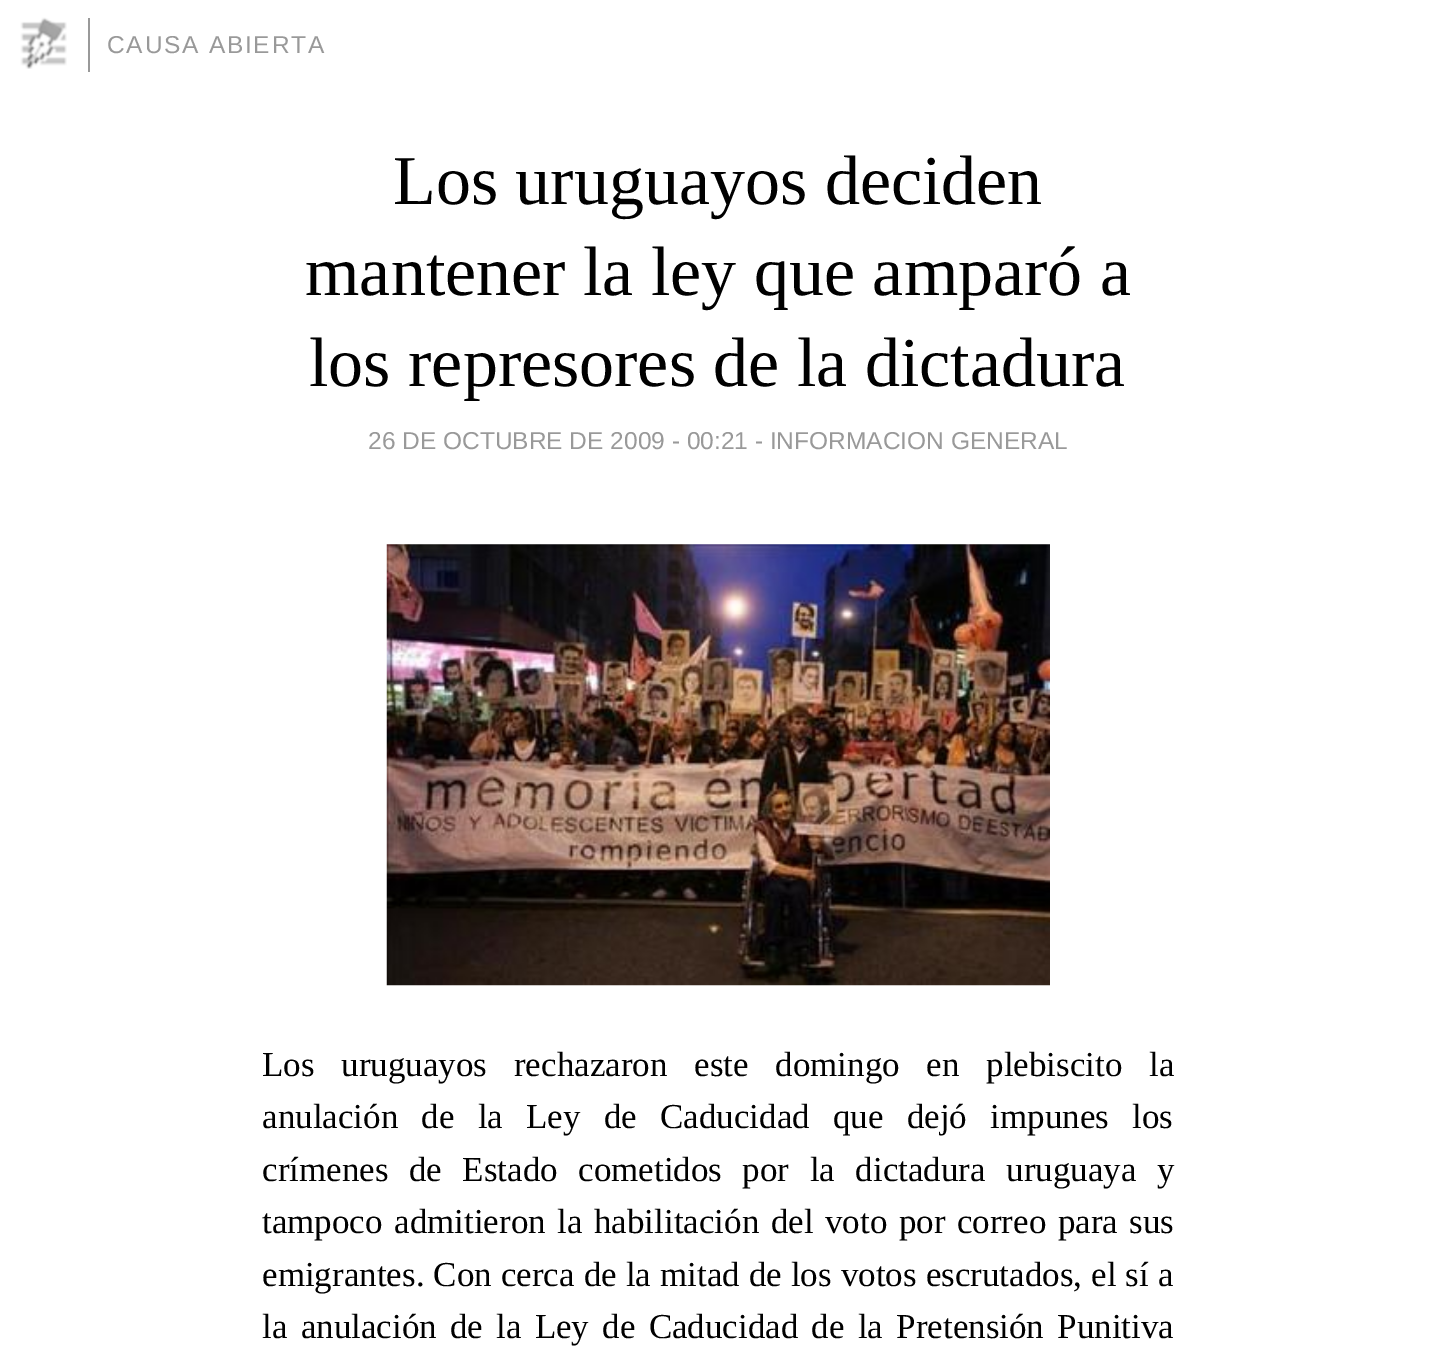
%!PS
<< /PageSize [1434 1365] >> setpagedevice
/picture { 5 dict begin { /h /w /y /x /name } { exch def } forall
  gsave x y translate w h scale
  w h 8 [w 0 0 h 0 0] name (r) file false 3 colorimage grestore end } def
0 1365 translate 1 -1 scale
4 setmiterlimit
1 setgray
0 0 1434 1365 rectfill
(img1.rgb) 20 17 47 52 picture
0.6 setgray
88 18 2 54 rectfill
/LiberationSans-Regular [24.5 0 0 -24.5 0 0] selectfont
107 53 moveto 1.75 0 (CAUSA ABIERTA) ashow
/LiberationSerif-Regular [70 0 0 -70 0 0] selectfont
0 setgray
393 204 moveto (Los uruguayos deciden) show
305 295 moveto (mantener la ley que amparó a) show
309 386 moveto (los represores de la dictadura) show
/LiberationSans-Regular [24.5 0 0 -24.5 0 0] selectfont
0.6 setgray
368 449 moveto (26 DE OCTUBRE DE 2009 - 00:21 - INFORMACION GENERAL) show
(img2.rgb) 386 544 664 442 picture
/LiberationSerif-Regular [35 0 0 -35 0 0] selectfont
0 setgray
262 1076 moveto 18 0 32 (Los uruguayos rechazaron este domingo en plebiscito la) widthshow
262 1128 moveto 14.5 0 32 (anulación de la Ley de Caducidad que dejó impunes los) widthshow
262 1181 moveto 11.75 0 32 (crímenes de Estado cometidos por la dictadura uruguaya y) widthshow
262 1233 moveto 2.75 0 32 (tampoco admitieron la habilitación del voto por correo para sus) widthshow
262 1286 moveto 0.3 0 32 (emigrantes. Con cerca de la mitad de los votos escrutados, el sí a) widthshow
262 1338 moveto 4.5 0 32 (la anulación de la Ley de Caducidad de la Pretensión Punitiva) widthshow
showpage
